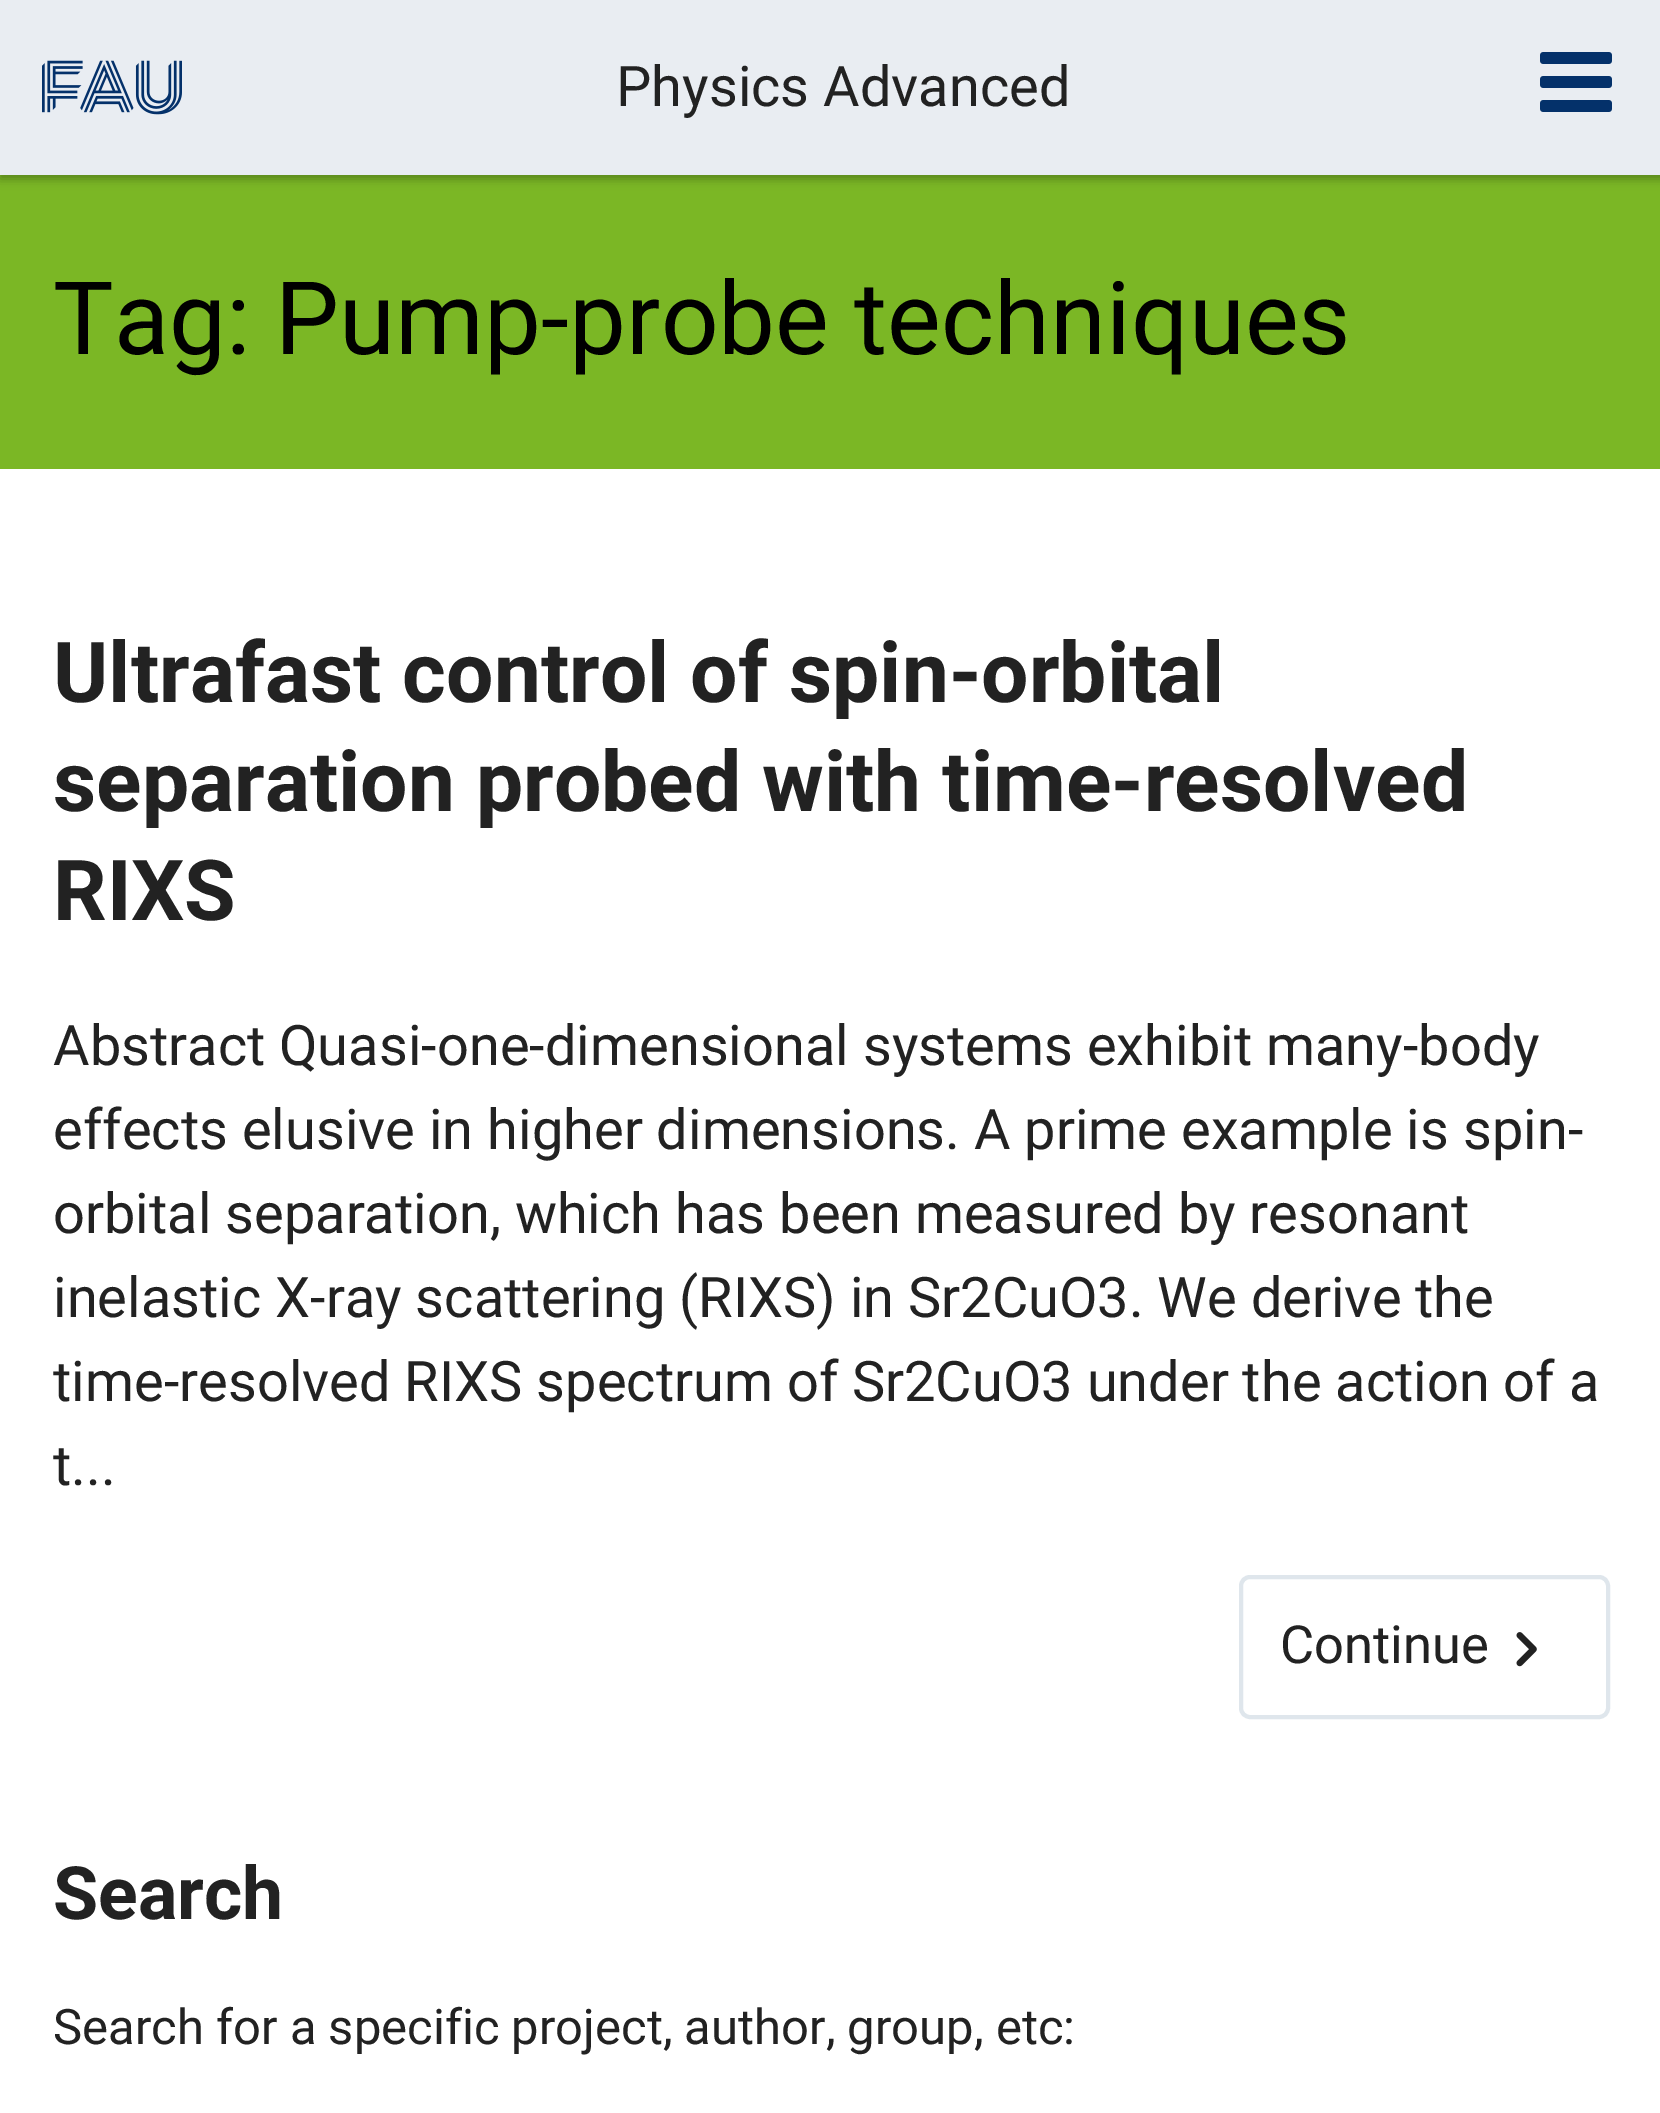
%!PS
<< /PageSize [1660 2113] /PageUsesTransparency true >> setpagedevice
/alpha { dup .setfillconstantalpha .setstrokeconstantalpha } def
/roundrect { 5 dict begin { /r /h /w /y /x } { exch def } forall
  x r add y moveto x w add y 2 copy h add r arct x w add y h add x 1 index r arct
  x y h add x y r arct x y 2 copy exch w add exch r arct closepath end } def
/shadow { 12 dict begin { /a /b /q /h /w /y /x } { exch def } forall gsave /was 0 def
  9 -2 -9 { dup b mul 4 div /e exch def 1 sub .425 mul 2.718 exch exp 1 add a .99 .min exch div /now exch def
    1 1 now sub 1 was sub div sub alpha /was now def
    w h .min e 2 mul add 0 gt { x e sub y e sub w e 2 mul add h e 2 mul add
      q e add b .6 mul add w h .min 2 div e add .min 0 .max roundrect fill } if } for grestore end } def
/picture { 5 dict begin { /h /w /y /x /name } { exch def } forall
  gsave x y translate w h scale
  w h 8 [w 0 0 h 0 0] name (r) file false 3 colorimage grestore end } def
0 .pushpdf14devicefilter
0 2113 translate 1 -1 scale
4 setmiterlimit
1 setgray
0 0 1660 2113 rectfill
0.482 0.718 0.145 setrgbcolor
0 175 1660 294 rectfill
0 setgray
0 4 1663 175 0 5 0.3 shadow
0.914 0.929 0.949 setrgbcolor
0 0 1660 175 rectfill
(img1.rgb) 42 60 140 55 picture
/Roboto-Regular [56 0 0 -56 0 0] selectfont
0.133 setgray
616 106 moveto (Physics Advanced) show
(img2.rgb) 1540 52 72 60 picture
/Roboto-Regular [101.5 0 0 -101.5 0 0] selectfont
0 setgray
53 354 moveto (Tag: Pump-probe techniques) show
/Roboto-Bold [84 0 0 -84 0 0] selectfont
0.133 setgray
53 702 moveto (Ultrafast control of spin-orbital) show
53 811 moveto (separation probed with time-resolved) show
53 920 moveto (RIXS) show
/Roboto-Regular [56 0 0 -56 0 0] selectfont
53 1065 moveto (Abstract Quasi-one-dimensional systems exhibit many-body) show
53 1149 moveto (effects elusive in higher dimensions. A prime example is spin-) show
53 1233 moveto (orbital separation, which has been measured by resonant) show
53 1317 moveto (inelastic X-ray scattering \(RIXS\) in Sr2CuO3. We derive the) show
53 1401 moveto (time-resolved RIXS spectrum of Sr2CuO3 under the action of a) show
53 1485 moveto (t...) show
0.875 0.902 0.925 setrgbcolor
4 setlinewidth
1241 1577 367 140 9 roundrect stroke
/Roboto-Regular [52.5 0 0 -52.5 0 0] selectfont
0.133 setgray
1280 1663 moveto (Continue) show
(img3.rgb) 1516 1632 21 35 picture
/Roboto-Bold [73.5 0 0 -73.5 0 0] selectfont
53 1919 moveto (Search) show
/Roboto-Regular [49 0 0 -49 0 0] selectfont
53 2044 moveto (Search for a specific project, author, group, etc:) show
.poppdf14devicefilter showpage
